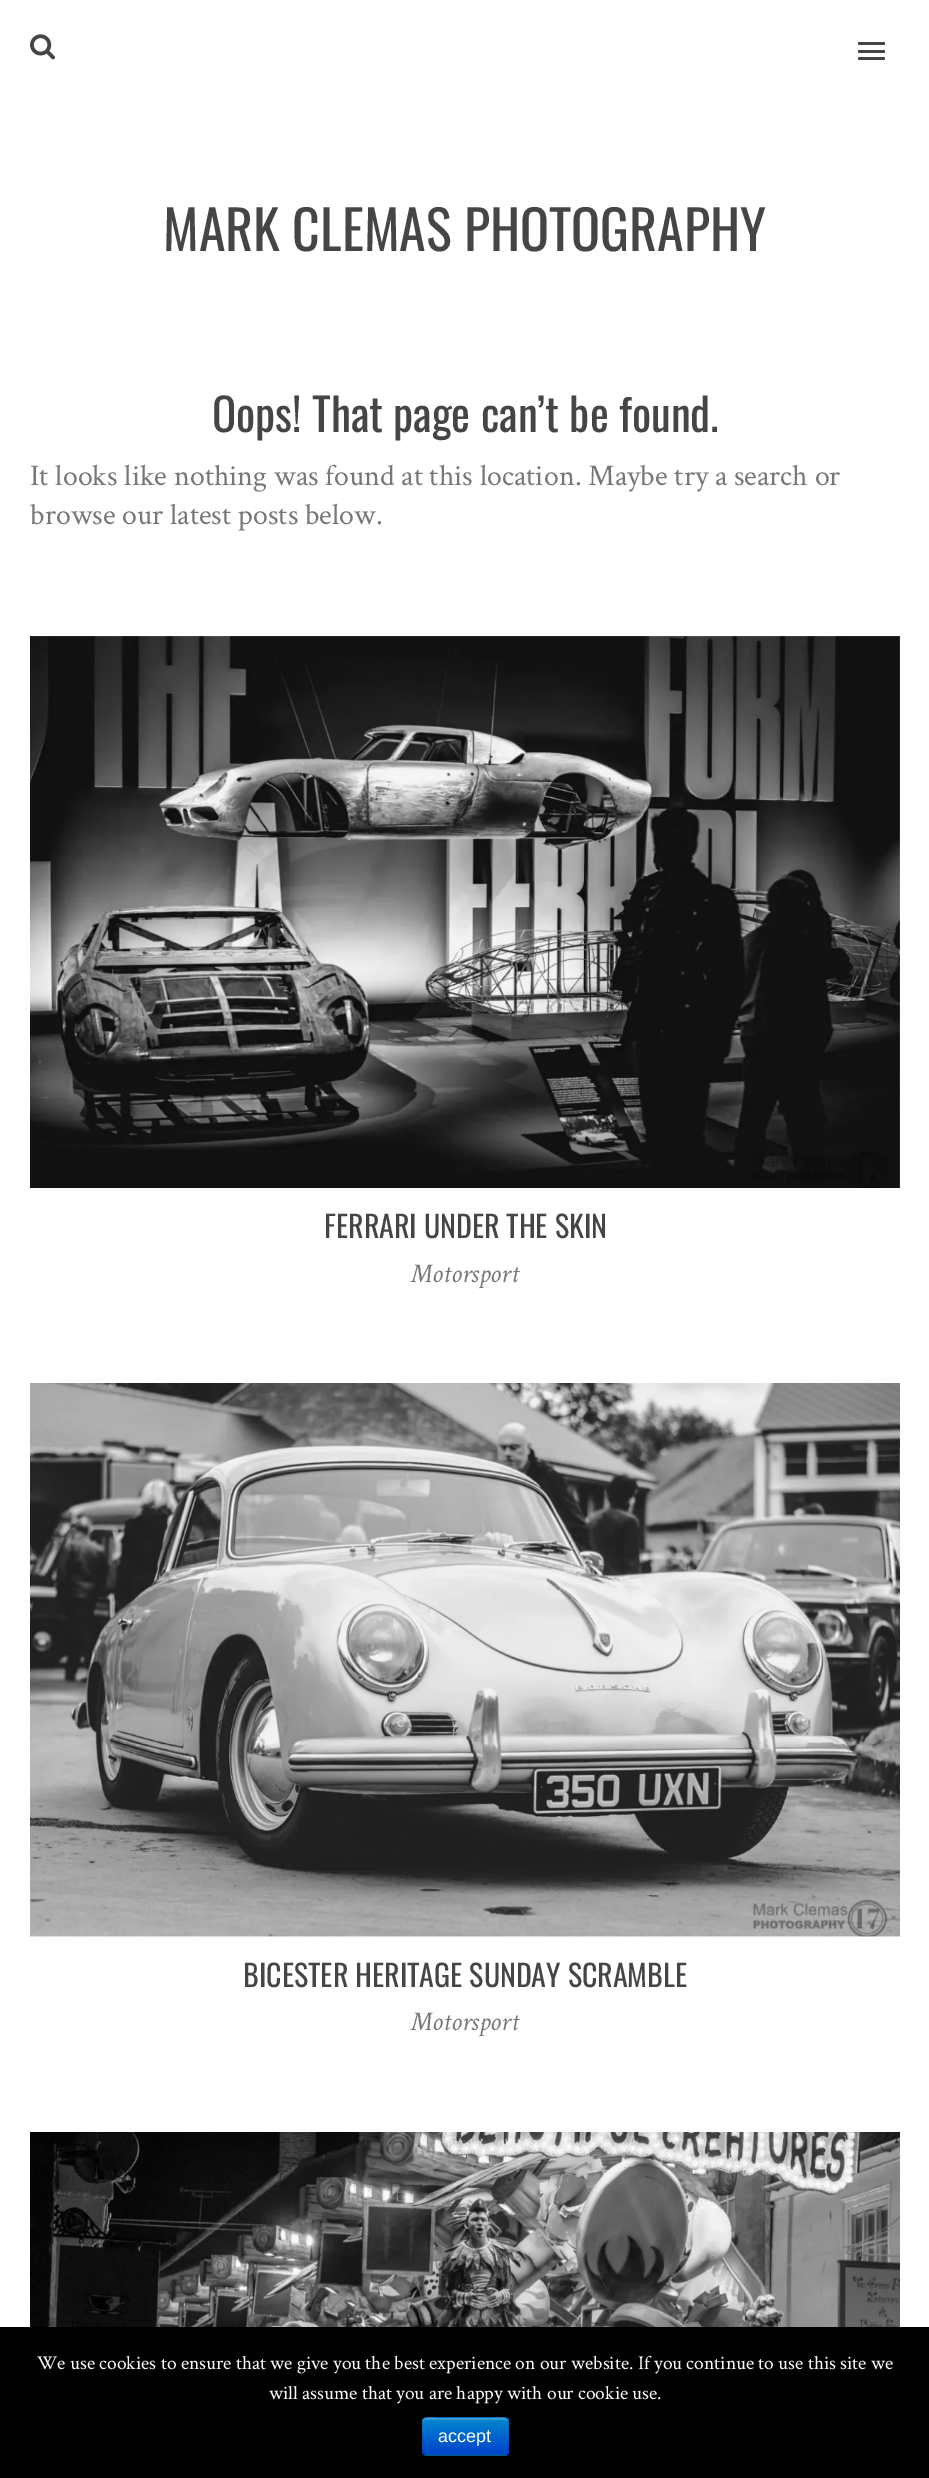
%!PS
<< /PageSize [929 2478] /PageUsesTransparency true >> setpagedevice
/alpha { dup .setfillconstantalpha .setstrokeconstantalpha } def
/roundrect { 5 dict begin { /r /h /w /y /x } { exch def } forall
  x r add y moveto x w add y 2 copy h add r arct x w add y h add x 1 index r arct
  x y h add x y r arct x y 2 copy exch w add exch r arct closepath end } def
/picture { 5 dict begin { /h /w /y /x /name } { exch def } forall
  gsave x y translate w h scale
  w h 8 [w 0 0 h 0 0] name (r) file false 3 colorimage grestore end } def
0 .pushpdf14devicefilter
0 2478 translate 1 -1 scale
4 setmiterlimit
1 setgray
0 0 929 2478 rectfill
(img1.rgb) 30 34 26 26 picture
0.271 setgray
858 42 27 3 1.5 roundrect fill
858 50 27 3 1.5 roundrect fill
858 57 27 3 1.5 roundrect fill
/Oswald-Regular [54 0 0 -54 0 0] selectfont
163 251 moveto (MARK CLEMAS PHOTOGRAPHY) show
/Oswald-Regular [45 0 0 -45 0 0] selectfont
212 432 moveto (Oops! That page can’t be found.) show
/CrimsonText-Regular [30 0 0 -30 0 0] selectfont
0.467 setgray
30 485 moveto (It looks like nothing was found at this location. Maybe try a search or) show
30 524 moveto (browse our latest posts below.) show
(img2.rgb) 30 636 870 552 picture
/Oswald-Regular [30 0 0 -30 0 0] selectfont
0.271 setgray
324 1238 moveto (FERRARI UNDER THE SKIN) show
/CrimsonText-Italic [27 0 0 -27 0 0] selectfont
0.467 setgray
411 1282 moveto (Motorsport) show
(img3.rgb) 30 1383 870 554 picture
/Oswald-Regular [30 0 0 -30 0 0] selectfont
0.271 setgray
243 1987 moveto (BICESTER HERITAGE SUNDAY SCRAMBLE) show
/CrimsonText-Italic [27 0 0 -27 0 0] selectfont
0.467 setgray
411 2030 moveto (Motorsport) show
(img4.rgb) 30 2132 870 195 picture
0 setgray
0 2327 929 151 rectfill
/CrimsonText-Regular [19.5 0 0 -19.5 0 0] selectfont
1 setgray
37 2369 moveto (We use cookies to ensure that we give you the best experience on our website. If you continue to use this site we) show
269 2399 moveto (will assume that you are happy with our cookie use.) show
0 0.427 0.8 setrgbcolor
422 2417 87 39 5 roundrect fill
gsave
422 2417 87 39 5 roundrect clip newpath
gsave newpath 422 2418 moveto 509 2418 lineto 509 2454 lineto 422 2454 lineto closepath clip newpath
<< /ShadingType 2 /ColorSpace /DeviceRGB /Coords [465 2418 465 2454] /Extend [true true] /Function << /FunctionType 2 /Domain [0 1] /C0 [0 0.533 0.8] /C1 [0 0.267 0.8] /N 1 >> >> shfill grestore
grestore
0.2 alpha
1 setgray
newpath 426 2420 moveto 504 2420 lineto 506 2420 507 2421 507 2422 curveto 507 2415 495 2418 491 2418 curveto 439 2418 lineto 435 2418 423 2415 423 2422 curveto 423 2421 424 2420 426 2420 curveto closepath fill
0.25 alpha
0 setgray
1.5 setlinewidth
newpath 506.5 2453.5 moveto 506 2454.5 505 2455 504 2455 curveto 426 2455 lineto 425 2455 424 2454.5 423.5 2453.5 curveto stroke
0.1 alpha
newpath 423.5 2453.5 moveto 421.5 2452 422 2448 422 2446 curveto 422 2436 lineto 422 2415 418.5 2417 439 2417 curveto 491 2417 lineto 511.5 2417 508 2415 508 2436 curveto 508 2446 lineto 508 2448 508.5 2452 506.5 2453.5 curveto stroke
/LiberationSans-Regular [18 0 0 -18 0 0] selectfont
1 alpha
1 setgray
438 2442 moveto (accept) show
.poppdf14devicefilter showpage
